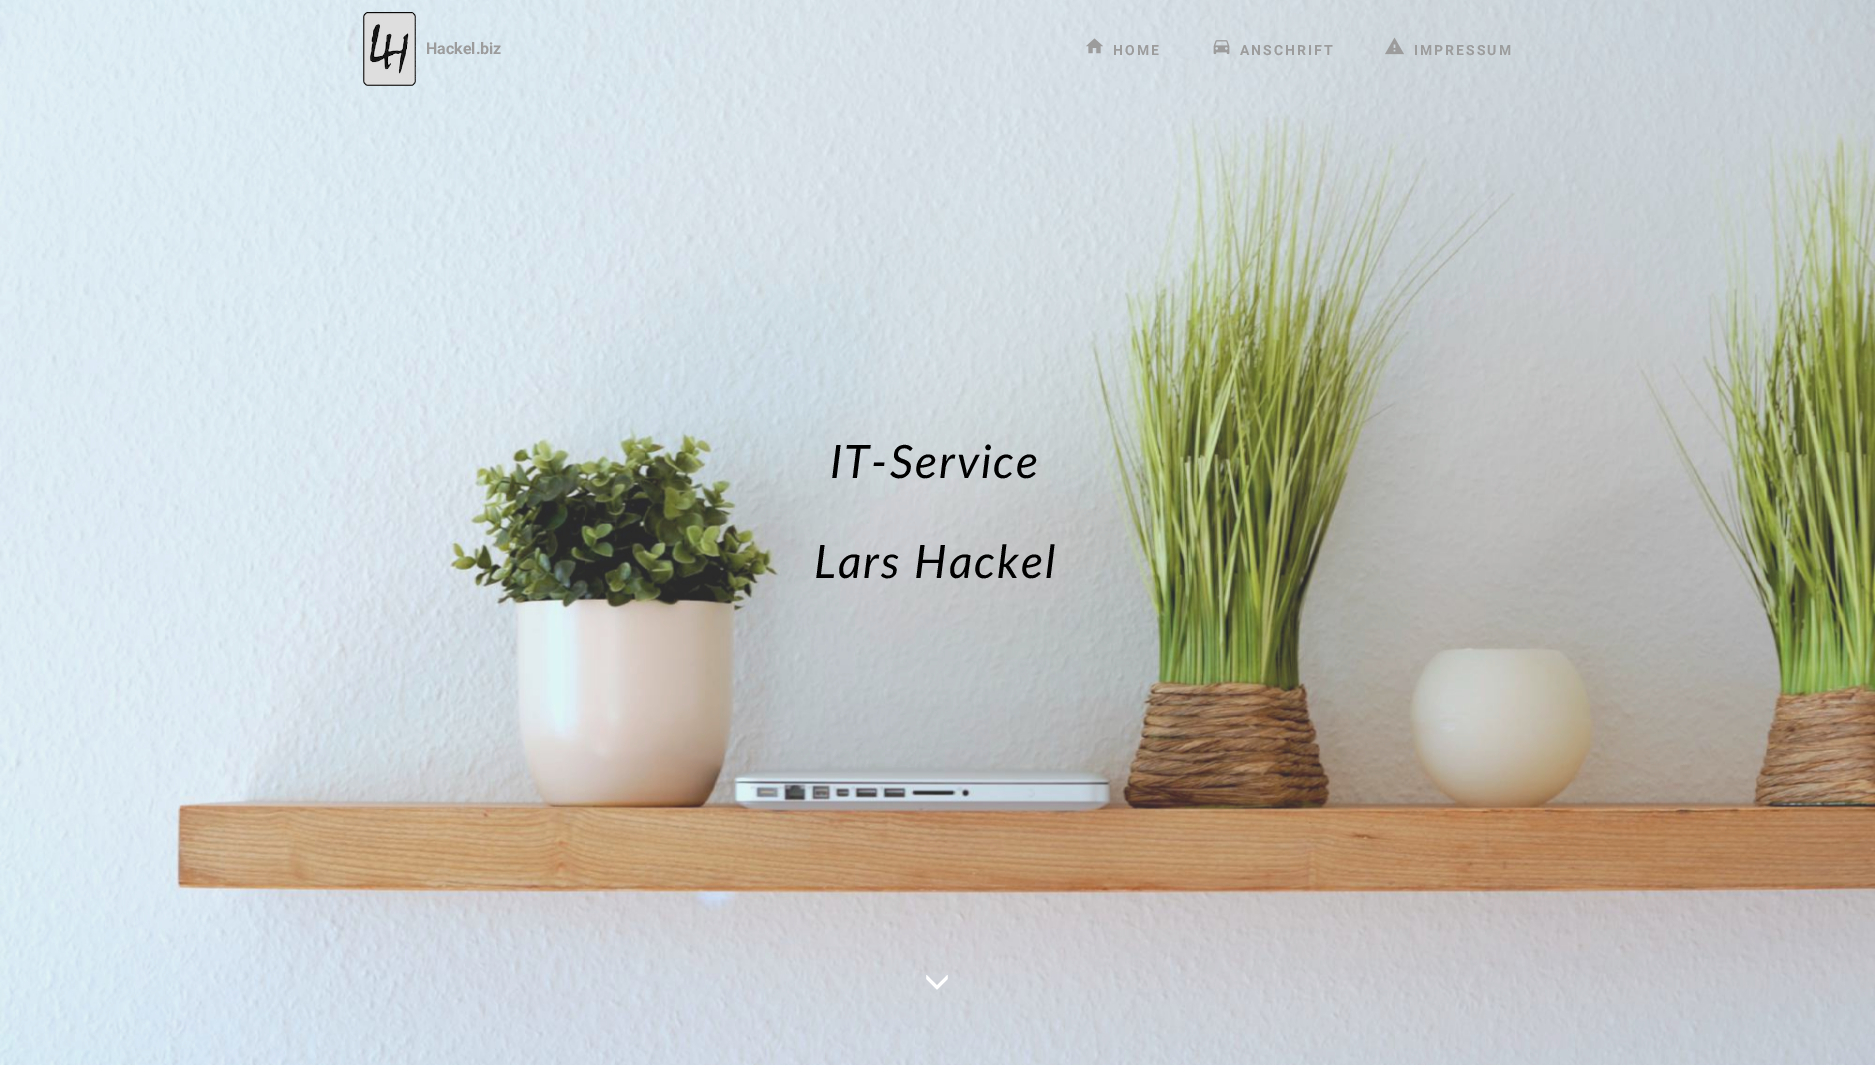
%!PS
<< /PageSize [1875 1065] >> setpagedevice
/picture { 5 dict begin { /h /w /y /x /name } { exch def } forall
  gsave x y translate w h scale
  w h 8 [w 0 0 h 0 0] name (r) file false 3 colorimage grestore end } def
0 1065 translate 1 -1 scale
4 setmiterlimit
1 setgray
0 0 1875 1065 rectfill
(img5.rgb) 0 0 1875 1065 picture
(img1.rgb) 363 12 53 74 picture
/Roboto-Bold [16 0 0 -16 0 0] selectfont
0.612 setgray
426 54 moveto (Hackel.biz) show
(img2.rgb) 1086 38 17 16 picture
/Roboto-Bold [14 0 0 -14 0 0] selectfont
1113 55 moveto 2 0 (HOME) ashow
(img3.rgb) 1213 40 17 15 picture
1240 55 moveto 2 0 (ANSCHRIFT) ashow
(img4.rgb) 1385 37 19 18 picture
1414 55 moveto 2 0 (IMPRESSUM) ashow
/Lato-Italic [46 0 0 -46 0 0] selectfont
0 setgray
830 478 moveto 2 0 (IT-Service) ashow
814 578 moveto 2 0 (Lars Hackel) ashow
(img6.rgb) 926 975 22 15 picture
showpage
